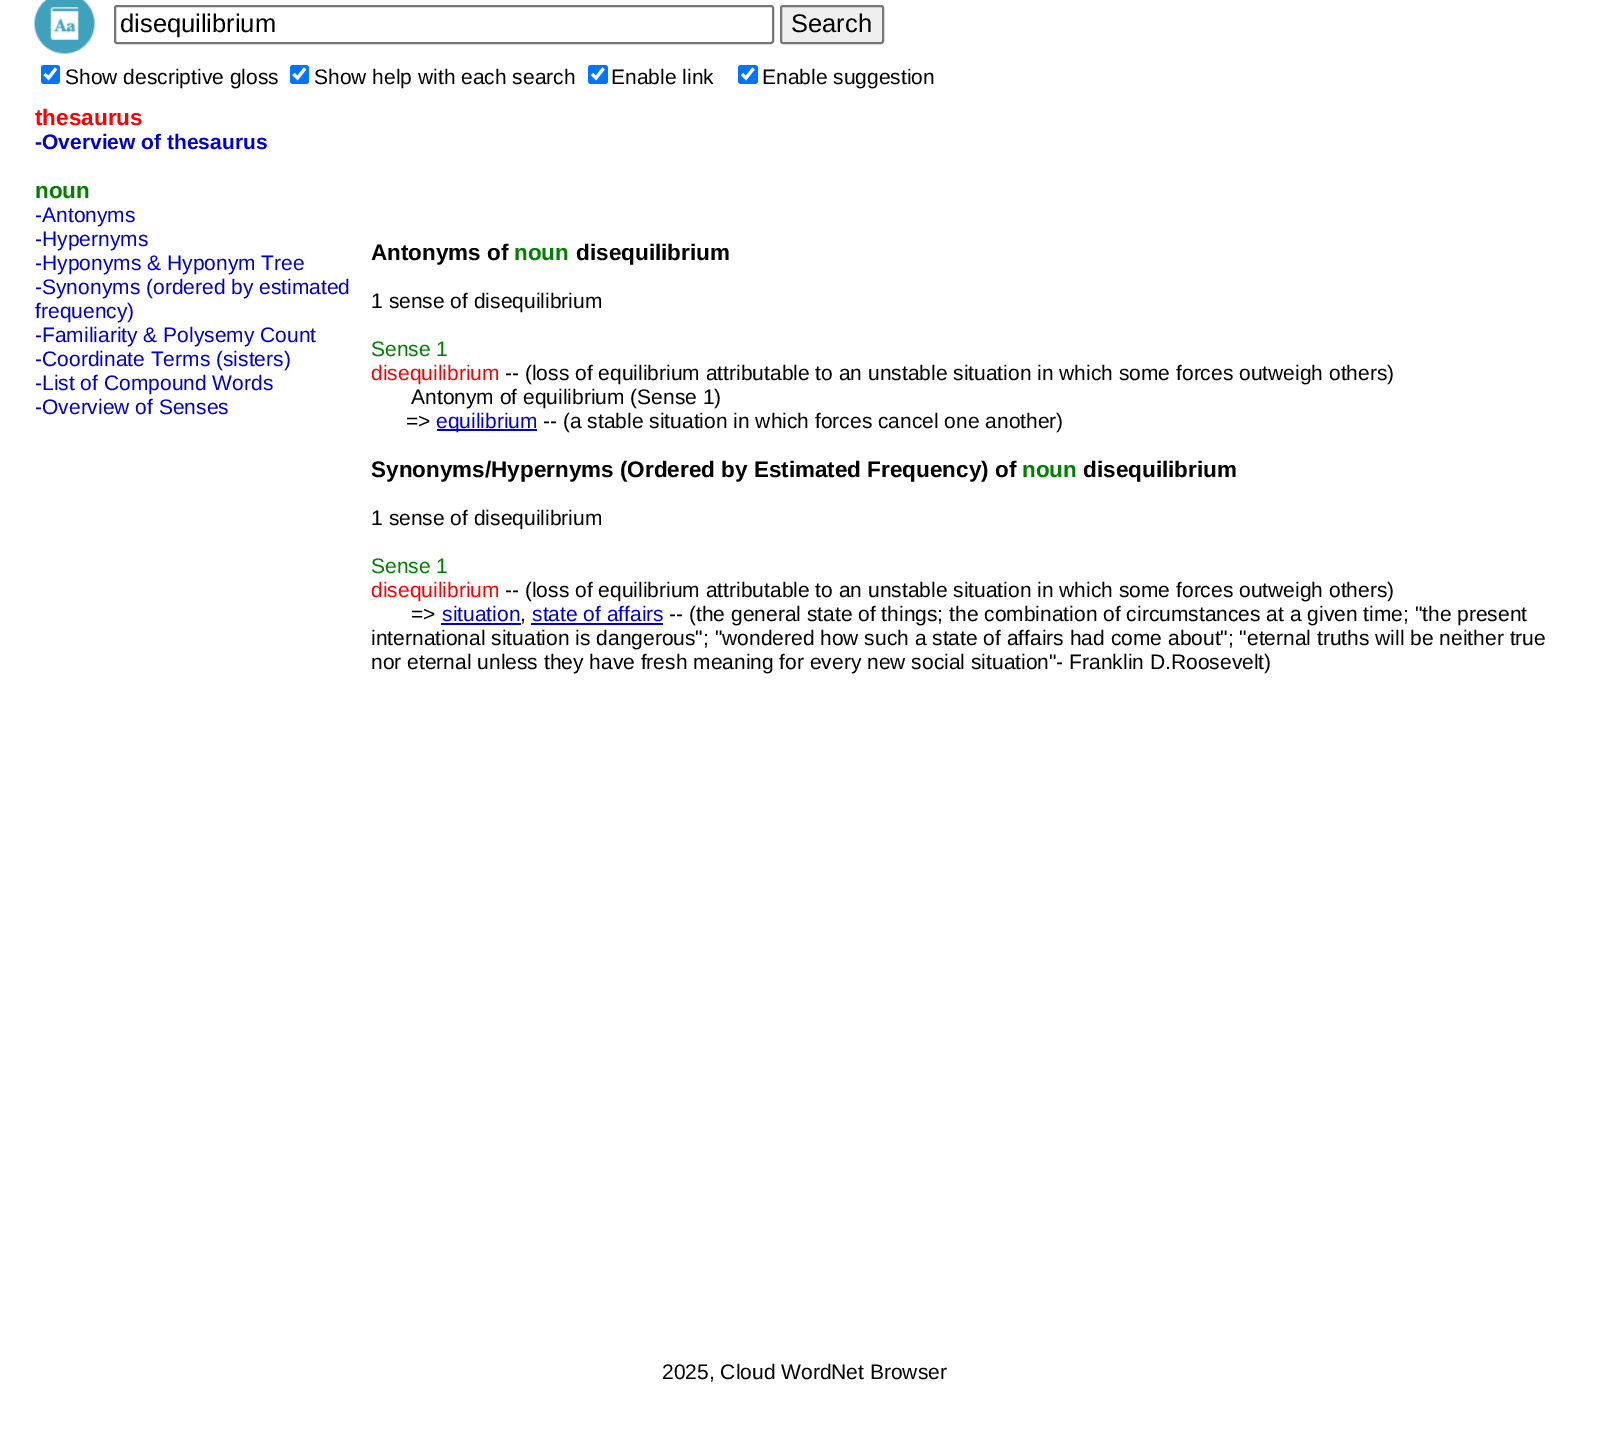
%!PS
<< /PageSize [1608 1447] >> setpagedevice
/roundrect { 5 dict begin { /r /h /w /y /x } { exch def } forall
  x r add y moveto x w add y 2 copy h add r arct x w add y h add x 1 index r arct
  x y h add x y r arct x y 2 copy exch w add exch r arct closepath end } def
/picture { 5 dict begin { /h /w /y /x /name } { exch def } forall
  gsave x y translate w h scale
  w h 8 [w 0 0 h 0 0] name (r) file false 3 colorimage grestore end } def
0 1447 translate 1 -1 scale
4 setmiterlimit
1 setgray
0 0 1608 1447 rectfill
(img1.rgb) 34 0 61 54 picture
0.463 setgray
2 setlinewidth
115 6 658 37 2 roundrect stroke
/LiberationSans-Regular [25.5 0 0 -25.5 0 0] selectfont
0 setgray
120 32 moveto (disequilibrium) show
0.937 setgray
781 6 102 37 2 roundrect gsave fill grestore
0.463 setgray
stroke
0 setgray
791 32 moveto (Search) show
0 0.459 1 setrgbcolor
41 65 19 19 3 roundrect fill
1 setgray
3.1 setlinewidth
newpath 44.5 74 moveto 48.5 78 lineto 56 68.5 lineto stroke
/LiberationSans-Regular [21 0 0 -21 0 0] selectfont
0 setgray
65 84 moveto (Show descriptive gloss) show
0 0.459 1 setrgbcolor
290 65 19 19 3 roundrect fill
1 setgray
newpath 293.5 74 moveto 297.5 78 lineto 305 68.5 lineto stroke
0 setgray
314 84 moveto (Show help with each search) show
0 0.459 1 setrgbcolor
588 65 20 19 3 roundrect fill
1 setgray
newpath 592 74 moveto 596 78 lineto 603.5 68.5 lineto stroke
0 setgray
611 84 moveto (Enable link) show
0 0.459 1 setrgbcolor
738 65 20 19 3 roundrect fill
1 setgray
newpath 742 74 moveto 746 78 lineto 753.5 68.5 lineto stroke
0 setgray
762 84 moveto (Enable suggestion) show
/LiberationSans-Bold [22.5 0 0 -22.5 0 0] selectfont
1 0 0 setrgbcolor
35 125 moveto (thesaurus) show
/LiberationSans-Bold [21 0 0 -21 0 0] selectfont
0 0 0.8 setrgbcolor
35 149 moveto (-Overview of thesaurus) show
/LiberationSans-Bold [22.5 0 0 -22.5 0 0] selectfont
0 0.502 0 setrgbcolor
35 198 moveto (noun) show
/LiberationSans-Regular [21 0 0 -21 0 0] selectfont
0 0 0.8 setrgbcolor
35 222 moveto (-Antonyms) show
35 246 moveto (-Hypernyms) show
35 270 moveto (-Hyponyms & Hyponym Tree) show
35 294 moveto (-Synonyms \(ordered by estimated) show
35 318 moveto (frequency\)) show
35 342 moveto (-Familiarity & Polysemy Count) show
35 366 moveto (-Coordinate Terms \(sisters\)) show
35 390 moveto (-List of Compound Words) show
35 414 moveto (-Overview of Senses) show
/LiberationSans-Bold [22.5 0 0 -22.5 0 0] selectfont
0 setgray
371 260 moveto (Antonyms of) show
0 0.502 0 setrgbcolor
514 260 moveto (noun) show
0 setgray
576 260 moveto (disequilibrium) show
/LiberationSans-Regular [21 0 0 -21 0 0] selectfont
371 308 moveto (1 sense of disequilibrium) show
0 0.502 0 setrgbcolor
371 356 moveto (Sense 1) show
1 0 0 setrgbcolor
371 380 moveto (disequilibrium) show
0 setgray
505 380 moveto (-- \(loss of equilibrium attributable to an unstable situation in which some forces outweigh others\)) show
411 404 moveto (Antonym of equilibrium \(Sense 1\)) show
406 428 moveto (=>) show
0 0 0.8 setrgbcolor
437 429 100 2 rectfill
436 428 moveto (equilibrium) show
0 setgray
543 428 moveto (-- \(a stable situation in which forces cancel one another\)) show
/LiberationSans-Bold [22.5 0 0 -22.5 0 0] selectfont
371 477 moveto (Synonyms/Hypernyms \(Ordered by Estimated Frequency\) of) show
0 0.502 0 setrgbcolor
1022 477 moveto (noun) show
0 setgray
1083 477 moveto (disequilibrium) show
/LiberationSans-Regular [21 0 0 -21 0 0] selectfont
371 525 moveto (1 sense of disequilibrium) show
0 0.502 0 setrgbcolor
371 573 moveto (Sense 1) show
1 0 0 setrgbcolor
371 597 moveto (disequilibrium) show
0 setgray
505 597 moveto (-- \(loss of equilibrium attributable to an unstable situation in which some forces outweigh others\)) show
411 621 moveto (=>) show
0 0 0.8 setrgbcolor
442 621 moveto (situation) show
441 623 80 2 rectfill
532 621 moveto (state of affairs) show
531 623 132 2 rectfill
0 setgray
669 621 moveto (-- \(the general state of things; the combination of circumstances at a given time; "the present) show
520 621 moveto (,) show
371 645 moveto (international situation is dangerous"; "wondered how such a state of affairs had come about"; "eternal truths will be neither true) show
371 669 moveto (nor eternal unless they have fresh meaning for every new social situation"- Franklin D.Roosevelt\)) show
662 1379 moveto (2025, Cloud WordNet Browser) show
showpage
